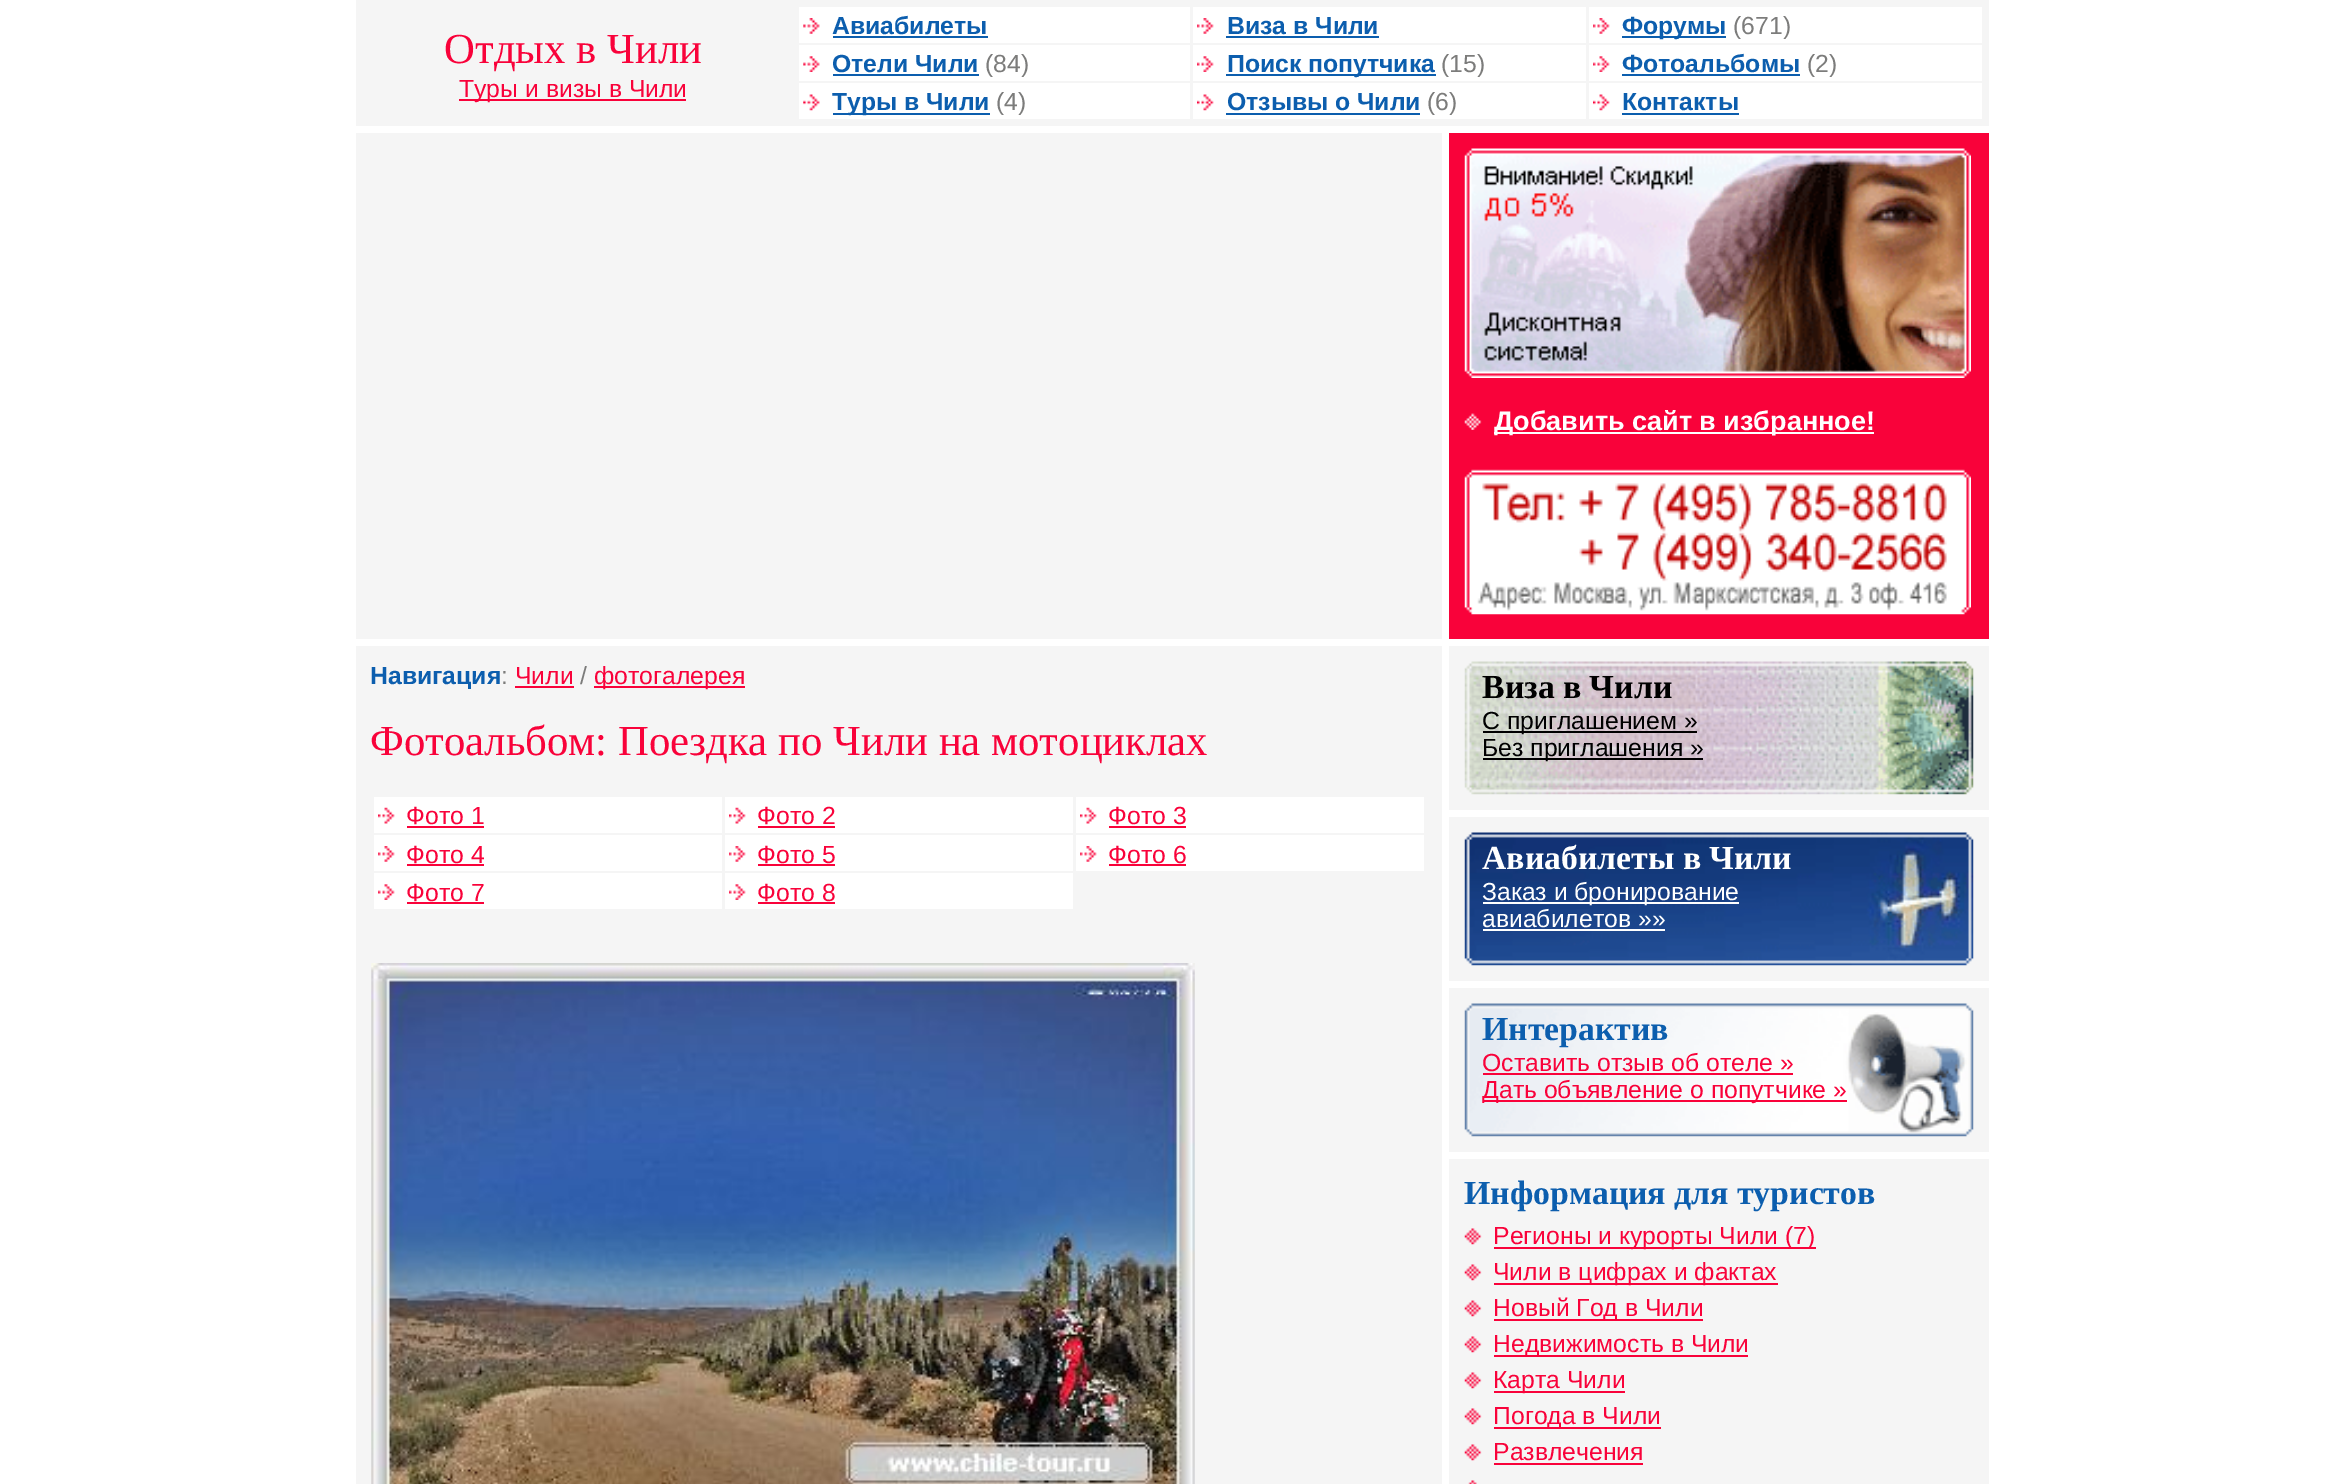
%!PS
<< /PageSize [2341 1484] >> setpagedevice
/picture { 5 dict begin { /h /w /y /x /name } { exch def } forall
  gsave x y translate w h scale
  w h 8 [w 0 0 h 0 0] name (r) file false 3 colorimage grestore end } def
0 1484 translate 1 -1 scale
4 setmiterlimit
1 setgray
0 0 2341 1484 rectfill
0.961 setgray
356 0 1633 126 rectfill
/LiberationSerif-Regular [42.75 0 0 -42.75 0 0] selectfont
0.976 0.008 0.227 setrgbcolor
444 63 moveto (Отдых в Чили) show
459 99 227 2 rectfill
/LiberationSans-Regular [24.75 0 0 -24.75 0 0] selectfont
459 97 moveto (Туры и визы в Чили) show
1 setgray
799 7 391 36 rectfill
(img1.rgb) 803 18 17 16 picture
/LiberationSans-Bold [24.75 0 0 -24.75 0 0] selectfont
0.047 0.369 0.682 setrgbcolor
832 34 moveto (Авиабилеты) show
833 36 155 2 rectfill
1 setgray
1193 7 393 36 rectfill
(img2.rgb) 1197 18 17 16 picture
0.047 0.369 0.682 setrgbcolor
1227 34 moveto (Виза в Чили) show
1226 36 153 2 rectfill
1 setgray
1589 7 393 36 rectfill
(img3.rgb) 1593 18 17 16 picture
0.047 0.369 0.682 setrgbcolor
1622 36 104 2 rectfill
1622 34 moveto (Форумы) show
/LiberationSans-Regular [24.75 0 0 -24.75 0 0] selectfont
0.486 0.486 0.482 setrgbcolor
1733 34 moveto (\(671\)) show
1 setgray
799 45 391 36 rectfill
(img4.rgb) 803 56 17 16 picture
/LiberationSans-Bold [24.75 0 0 -24.75 0 0] selectfont
0.047 0.369 0.682 setrgbcolor
832 72 moveto (Отели Чили) show
833 74 146 2 rectfill
/LiberationSans-Regular [24.75 0 0 -24.75 0 0] selectfont
0.486 0.486 0.482 setrgbcolor
985 72 moveto (\(84\)) show
1 setgray
1193 45 393 36 rectfill
(img5.rgb) 1197 56 17 16 picture
0.047 0.369 0.682 setrgbcolor
1226 74 210 2 rectfill
/LiberationSans-Bold [24.75 0 0 -24.75 0 0] selectfont
1227 72 moveto (Поиск попутчика) show
/LiberationSans-Regular [24.75 0 0 -24.75 0 0] selectfont
0.486 0.486 0.482 setrgbcolor
1441 72 moveto (\(15\)) show
1 setgray
1589 45 393 36 rectfill
(img6.rgb) 1593 56 17 16 picture
/LiberationSans-Bold [24.75 0 0 -24.75 0 0] selectfont
0.047 0.369 0.682 setrgbcolor
1622 72 moveto (Фотоальбомы) show
1622 74 178 2 rectfill
/LiberationSans-Regular [24.75 0 0 -24.75 0 0] selectfont
0.486 0.486 0.482 setrgbcolor
1807 72 moveto (\(2\)) show
1 setgray
799 83 391 36 rectfill
(img7.rgb) 803 94 17 17 picture
0.047 0.369 0.682 setrgbcolor
833 113 157 2 rectfill
/LiberationSans-Bold [24.75 0 0 -24.75 0 0] selectfont
832 110 moveto (Туры в Чили) show
/LiberationSans-Regular [24.75 0 0 -24.75 0 0] selectfont
0.486 0.486 0.482 setrgbcolor
996 110 moveto (\(4\)) show
1 setgray
1193 83 393 36 rectfill
(img8.rgb) 1197 94 17 17 picture
/LiberationSans-Bold [24.75 0 0 -24.75 0 0] selectfont
0.047 0.369 0.682 setrgbcolor
1227 110 moveto (Отзывы о Чили) show
1226 113 194 2 rectfill
/LiberationSans-Regular [24.75 0 0 -24.75 0 0] selectfont
0.486 0.486 0.482 setrgbcolor
1427 110 moveto (\(6\)) show
1 setgray
1589 83 393 36 rectfill
(img9.rgb) 1593 94 17 17 picture
/LiberationSans-Bold [24.75 0 0 -24.75 0 0] selectfont
0.047 0.369 0.682 setrgbcolor
1622 110 moveto (Контакты) show
1622 113 117 2 rectfill
0.961 setgray
356 133 1086 506 rectfill
0.976 0.008 0.227 setrgbcolor
1449 133 540 506 rectfill
(img10.rgb) 1464 148 507 230 picture
(img11.rgb) 1464 413 18 17 picture
1 setgray
1494 432 380 2 rectfill
/LiberationSans-Bold [27 0 0 -27 0 0] selectfont
1494 430 moveto (Добавить сайт в избранное!) show
(img12.rgb) 1464 469 507 146 picture
0.961 setgray
356 646 1086 838 rectfill
/LiberationSans-Bold [24.75 0 0 -24.75 0 0] selectfont
0.047 0.369 0.682 setrgbcolor
370 684 moveto (Навигация) show
/LiberationSans-Regular [24.75 0 0 -24.75 0 0] selectfont
0.486 0.486 0.482 setrgbcolor
501 684 moveto (:) show
0.976 0.008 0.227 setrgbcolor
515 684 moveto (Чили) show
515 686 59 2 rectfill
0.486 0.486 0.482 setrgbcolor
580 684 moveto (/) show
0.976 0.008 0.227 setrgbcolor
594 686 151 2 rectfill
594 684 moveto (фотогалерея) show
/LiberationSerif-Regular [42.75 0 0 -42.75 0 0] selectfont
370 755 moveto (Фотоальбом: Поездка по Чили на мотоциклах) show
1 setgray
374 797 348 36 rectfill
(img13.rgb) 378 807 17 17 picture
/LiberationSans-Regular [24.75 0 0 -24.75 0 0] selectfont
0.976 0.008 0.227 setrgbcolor
406 824 moveto (Фото 1) show
407 826 77 2 rectfill
1 setgray
725 797 348 36 rectfill
(img13.rgb) 729 807 17 17 picture
0.976 0.008 0.227 setrgbcolor
757 824 moveto (Фото 2) show
758 826 77 2 rectfill
1 setgray
1076 797 348 36 rectfill
(img13.rgb) 1080 807 17 17 picture
0.976 0.008 0.227 setrgbcolor
1108 824 moveto (Фото 3) show
1109 826 77 2 rectfill
1 setgray
374 835 348 36 rectfill
(img2.rgb) 378 846 17 16 picture
0.976 0.008 0.227 setrgbcolor
406 863 moveto (Фото 4) show
407 864 77 2 rectfill
1 setgray
725 835 348 36 rectfill
(img2.rgb) 729 846 17 16 picture
0.976 0.008 0.227 setrgbcolor
757 863 moveto (Фото 5) show
758 864 77 2 rectfill
1 setgray
1076 835 348 36 rectfill
(img2.rgb) 1080 846 17 16 picture
0.976 0.008 0.227 setrgbcolor
1108 863 moveto (Фото 6) show
1109 864 77 2 rectfill
1 setgray
374 873 348 36 rectfill
(img5.rgb) 378 884 17 16 picture
0.976 0.008 0.227 setrgbcolor
406 901 moveto (Фото 7) show
407 902 77 2 rectfill
1 setgray
725 873 348 36 rectfill
(img5.rgb) 729 884 17 16 picture
0.976 0.008 0.227 setrgbcolor
757 901 moveto (Фото 8) show
758 902 77 2 rectfill
(img14.rgb) 371 963 824 521 picture
0.961 setgray
1449 646 540 838 rectfill
(img15.rgb) 1464 661 510 134 picture
/LiberationSerif-Bold [33.75 0 0 -33.75 0 0] selectfont
0 setgray
1482 698 moveto (Виза в Чили) show
1483 731 214 2 rectfill
/LiberationSans-Regular [24.75 0 0 -24.75 0 0] selectfont
1482 729 moveto (С приглашением ») show
1483 758 220 2 rectfill
1482 756 moveto (Без приглашения ») show
1 setgray
1449 810 540 7 rectfill
(img16.rgb) 1464 832 510 134 picture
/LiberationSerif-Bold [33.75 0 0 -33.75 0 0] selectfont
1482 869 moveto (Авиабилеты в Чили) show
1483 902 256 2 rectfill
/LiberationSans-Regular [24.75 0 0 -24.75 0 0] selectfont
1482 900 moveto (Заказ и бронирование) show
1482 927 moveto (авиабилетов »») show
1483 929 182 2 rectfill
1449 981 540 7 rectfill
(img17.rgb) 1464 1003 510 134 picture
/LiberationSerif-Bold [33.75 0 0 -33.75 0 0] selectfont
0.047 0.369 0.682 setrgbcolor
1482 1040 moveto (Интерактив) show
/LiberationSans-Regular [24.75 0 0 -24.75 0 0] selectfont
0.976 0.008 0.227 setrgbcolor
1482 1071 moveto (Оставить отзыв об отеле ») show
1483 1073 310 2 rectfill
1483 1100 364 2 rectfill
1482 1098 moveto (Дать объявление о попутчике ») show
1 setgray
1449 1152 540 7 rectfill
/LiberationSerif-Bold [33.75 0 0 -33.75 0 0] selectfont
0.047 0.369 0.682 setrgbcolor
1464 1204 moveto (Информация для туристов) show
(img18.rgb) 1464 1228 18 17 picture
0.976 0.008 0.227 setrgbcolor
1494 1247 322 2 rectfill
/LiberationSans-Regular [24.75 0 0 -24.75 0 0] selectfont
1493 1244 moveto (Регионы и курорты Чили \(7\)) show
(img18.rgb) 1464 1264 18 17 picture
1494 1283 284 2 rectfill
1493 1280 moveto (Чили в цифрах и фактах) show
(img19.rgb) 1464 1300 18 17 picture
1494 1319 209 2 rectfill
1493 1316 moveto (Новый Год в Чили) show
(img18.rgb) 1464 1336 18 17 picture
1494 1355 254 2 rectfill
1493 1352 moveto (Недвижимость в Чили) show
(img18.rgb) 1464 1372 18 17 picture
1494 1391 131 2 rectfill
1493 1388 moveto (Карта Чили) show
(img18.rgb) 1464 1408 18 17 picture
1494 1427 167 2 rectfill
1493 1424 moveto (Погода в Чили) show
(img18.rgb) 1464 1444 18 17 picture
1493 1460 moveto (Развлечения) show
1494 1463 149 2 rectfill
(img20.rgb) 1468 1480 9 4 picture
showpage
